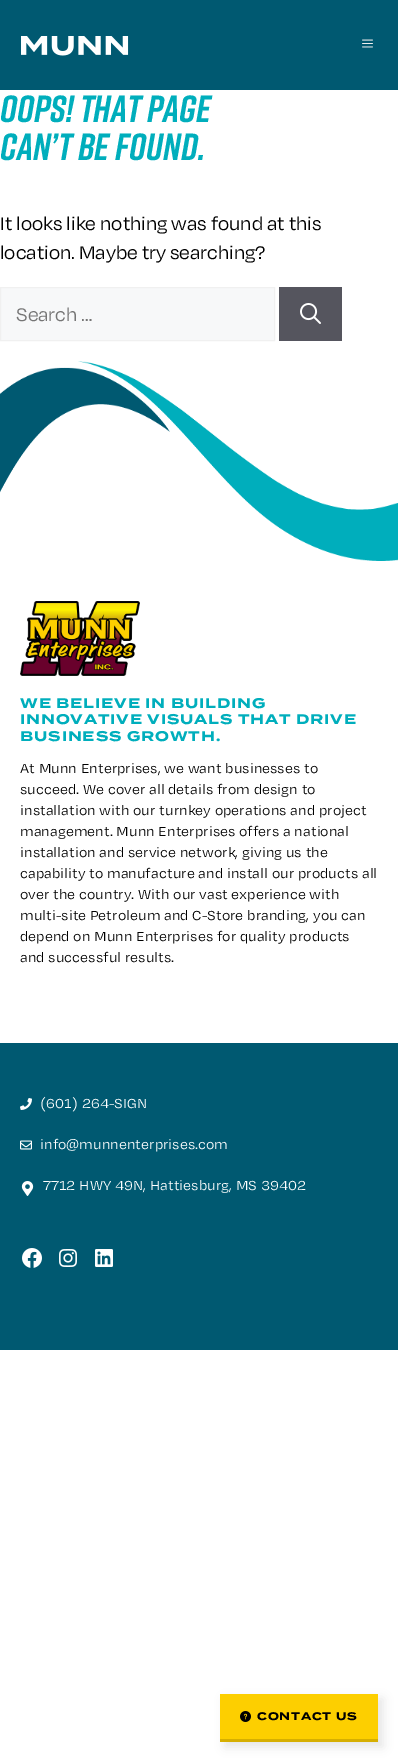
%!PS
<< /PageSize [398 1762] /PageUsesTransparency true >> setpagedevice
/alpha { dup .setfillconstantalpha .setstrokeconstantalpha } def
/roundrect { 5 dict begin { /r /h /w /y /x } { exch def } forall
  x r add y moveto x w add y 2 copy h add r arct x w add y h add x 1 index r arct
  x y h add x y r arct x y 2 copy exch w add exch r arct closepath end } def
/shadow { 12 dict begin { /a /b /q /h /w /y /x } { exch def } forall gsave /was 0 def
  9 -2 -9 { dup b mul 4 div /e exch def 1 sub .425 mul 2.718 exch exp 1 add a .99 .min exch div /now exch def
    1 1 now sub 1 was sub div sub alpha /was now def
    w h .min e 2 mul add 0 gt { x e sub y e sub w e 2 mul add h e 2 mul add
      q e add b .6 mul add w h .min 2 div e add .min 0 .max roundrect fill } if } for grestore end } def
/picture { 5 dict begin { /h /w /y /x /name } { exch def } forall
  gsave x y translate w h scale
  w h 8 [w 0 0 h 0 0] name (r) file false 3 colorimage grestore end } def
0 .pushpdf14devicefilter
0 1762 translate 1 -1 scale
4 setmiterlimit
1 setgray
0 0 398 1762 rectfill
0 0.349 0.443 setrgbcolor
0 0 398 90 rectfill
(img1.rgb) 21 36 108 20 picture
(img2.rgb) 362 39 11 9 picture
/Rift-BoldItalic [37.75 0 0 -37.75 0 0] selectfont
0 0.682 0.737 setrgbcolor
0 122 moveto (Oops! That page) show
0 160 moveto (can’t be found.) show
/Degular-Regular [21 0 0 -21 0 0] selectfont
0 setgray
0 230 moveto (It looks like nothing was found at this) show
0 259 moveto (location. Maybe try searching?) show
0.969 0.973 0.976 setrgbcolor
newpath 0.5 287.5 moveto 274.5 287.5 lineto 274.5 340.5 lineto 0.5 340.5 lineto closepath gsave fill grestore
0.941 setgray
stroke
0.459 setgray
16 321 moveto (Search …) show
0.333 0.333 0.369 setrgbcolor
279 287 63 54 rectfill
(img3.rgb) 300 303 21 21 picture
0 setgray
225 1699 158 48 0 5 0.1 shadow
0.992 0.812 0 setrgbcolor
220 1694 158 45 rectfill
0.839 0.686 0.004 setrgbcolor
220 1739 158 3 rectfill
(img4.rgb) 240 1711 11 11 picture
/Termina-Bold [11 0 0 -11 0 0] selectfont
0 setgray
257 1720 moveto 0.75 0 (CONTACT US) ashow
(img5.rgb) 0 361 398 200 picture
(img6.rgb) 20 601 120 75 picture
/Termina-Bold [14 0 0 -14 0 0] selectfont
0 0.682 0.737 setrgbcolor
20 708 moveto 0.9 0 (WE BELIEVE IN BUILDING) ashow
20 724 moveto 0.9 0 (INNOVATIVE VISUALS THAT DRIVE) ashow
20 741 moveto 0.9 0 (BUSINESS GROWTH.) ashow
/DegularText-Regular [15 0 0 -15 0 0] selectfont
0 setgray
20 773 moveto (At Munn Enterprises, we want businesses to) show
20 794 moveto (succeed. We cover all details from design to) show
20 815 moveto (installation with our turnkey operations and project) show
20 836 moveto (management. Munn Enterprises offers a national) show
20 857 moveto (installation and service network, giving us the) show
20 878 moveto (capability to manufacture and install our products all) show
20 899 moveto (over the country. With our vast experience with) show
20 920 moveto (multi-site Petroleum and C-Store branding, you can) show
20 941 moveto (depend on Munn Enterprises for quality products) show
20 962 moveto (and successful results.) show
0 0.349 0.443 setrgbcolor
0 1043 398 307 rectfill
(img7.rgb) 20 1098 12 12 picture
1 setgray
40 1108 moveto (\(601\) 264-SIGN) show
(img8.rgb) 20 1140 12 10 picture
40 1149 moveto (info@munnenterprises.com) show
(img9.rgb) 21 1181 13 15 picture
43 1190 moveto (7712 HWY 49N, Hattiesburg, MS 39402) show
(img10.rgb) 22 1248 20 20 picture
(img11.rgb) 59 1249 18 18 picture
(img12.rgb) 95 1249 18 18 picture
.poppdf14devicefilter showpage
